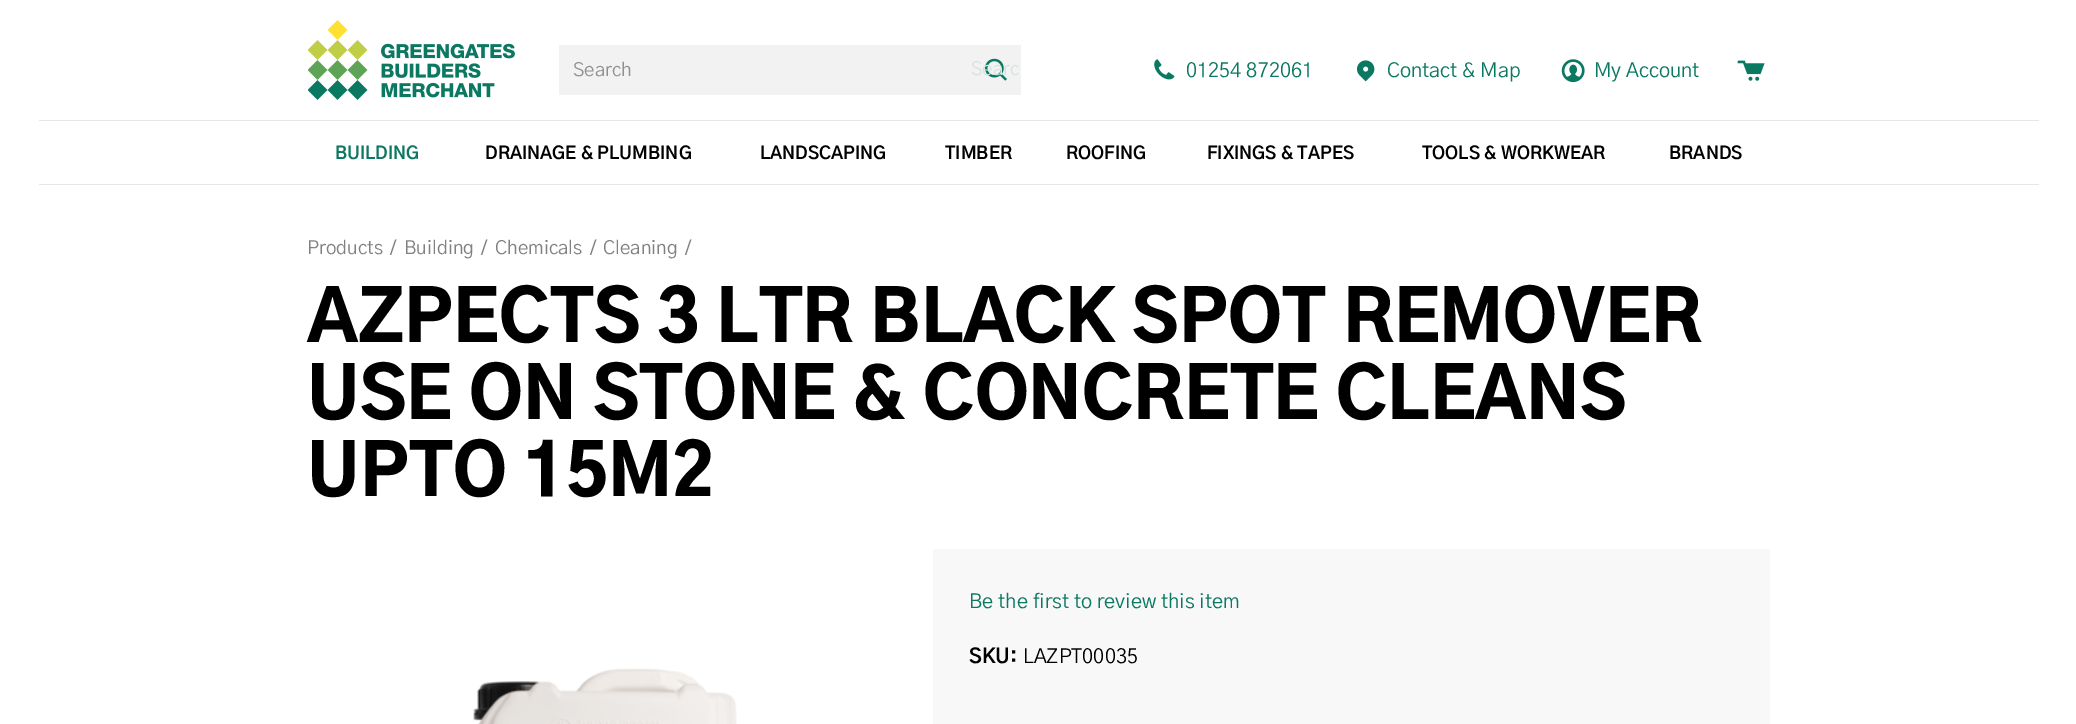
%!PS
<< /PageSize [2076 724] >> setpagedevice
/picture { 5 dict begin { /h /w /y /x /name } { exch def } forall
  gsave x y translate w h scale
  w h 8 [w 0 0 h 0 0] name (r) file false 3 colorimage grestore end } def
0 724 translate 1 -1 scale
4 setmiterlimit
1 setgray
0 0 2076 724 rectfill
(img1.rgb) 308 20 207 80 picture
0.949 setgray
559 45 462 50 rectfill
/GothicA1-Regular [18.75 0 0 -18.75 0 0] selectfont
0.569 setgray
573 76 moveto (Search) show
(img2.rgb) 985 58 22 23 picture
0.839 0.89 0.882 setrgbcolor
971 75 moveto (Searc) show
(img3.rgb) 1154 59 21 21 picture
/GothicA1-Regular [20 0 0 -20 0 0] selectfont
0.043 0.471 0.384 setrgbcolor
1186 77 moveto (01254 872061) show
(img4.rgb) 1357 60 18 22 picture
1387 77 moveto (Contact & Map) show
(img5.rgb) 1561 59 24 24 picture
1594 77 moveto (My Account) show
(img6.rgb) 1737 60 28 21 picture
0.902 setgray
39 120 2000 1 rectfill
/GothicA1-Bold [17.5 0 0 -17.5 0 0] selectfont
0.043 0.471 0.384 setrgbcolor
335 159 moveto (BUILDING) show
0 setgray
485 159 moveto (DRAINAGE & PLUMBING) show
760 159 moveto (LANDSCAPING) show
945 159 moveto (TIMBER) show
1066 159 moveto (ROOFING) show
1207 159 moveto (FIXINGS & TAPES) show
1422 159 moveto (TOOLS & WORKWEAR) show
1669 159 moveto (BRANDS) show
0.902 setgray
39 184 2000 1 rectfill
/GothicA1-Regular [18.75 0 0 -18.75 0 0] selectfont
0.502 setgray
307 254 moveto (Products) show
390 254 moveto (/) show
404 254 moveto (Building) show
481 254 moveto (/) show
495 254 moveto (Chemicals) show
590 254 moveto (/) show
603 254 moveto (Cleaning) show
685 254 moveto (/) show
/GothicA1-Black [70 0 0 -70 0 0] selectfont
0 setgray
307 342 moveto (AZPECTS 3 LTR BLACK SPOT REMOVER) show
307 419 moveto (USE ON STONE & CONCRETE CLEANS) show
307 496 moveto (UPTO 15M2) show
0.973 setgray
933 549 837 175 rectfill
/GothicA1-Regular [20 0 0 -20 0 0] selectfont
0.043 0.471 0.384 setrgbcolor
969 608 moveto (Be the first to review this item) show
/GothicA1-Bold [20 0 0 -20 0 0] selectfont
0 setgray
969 663 moveto (SKU:) show
/GothicA1-Regular [20 0 0 -20 0 0] selectfont
1023 663 moveto (LAZPT00035) show
(img7.rgb) 473 668 264 56 picture
showpage
